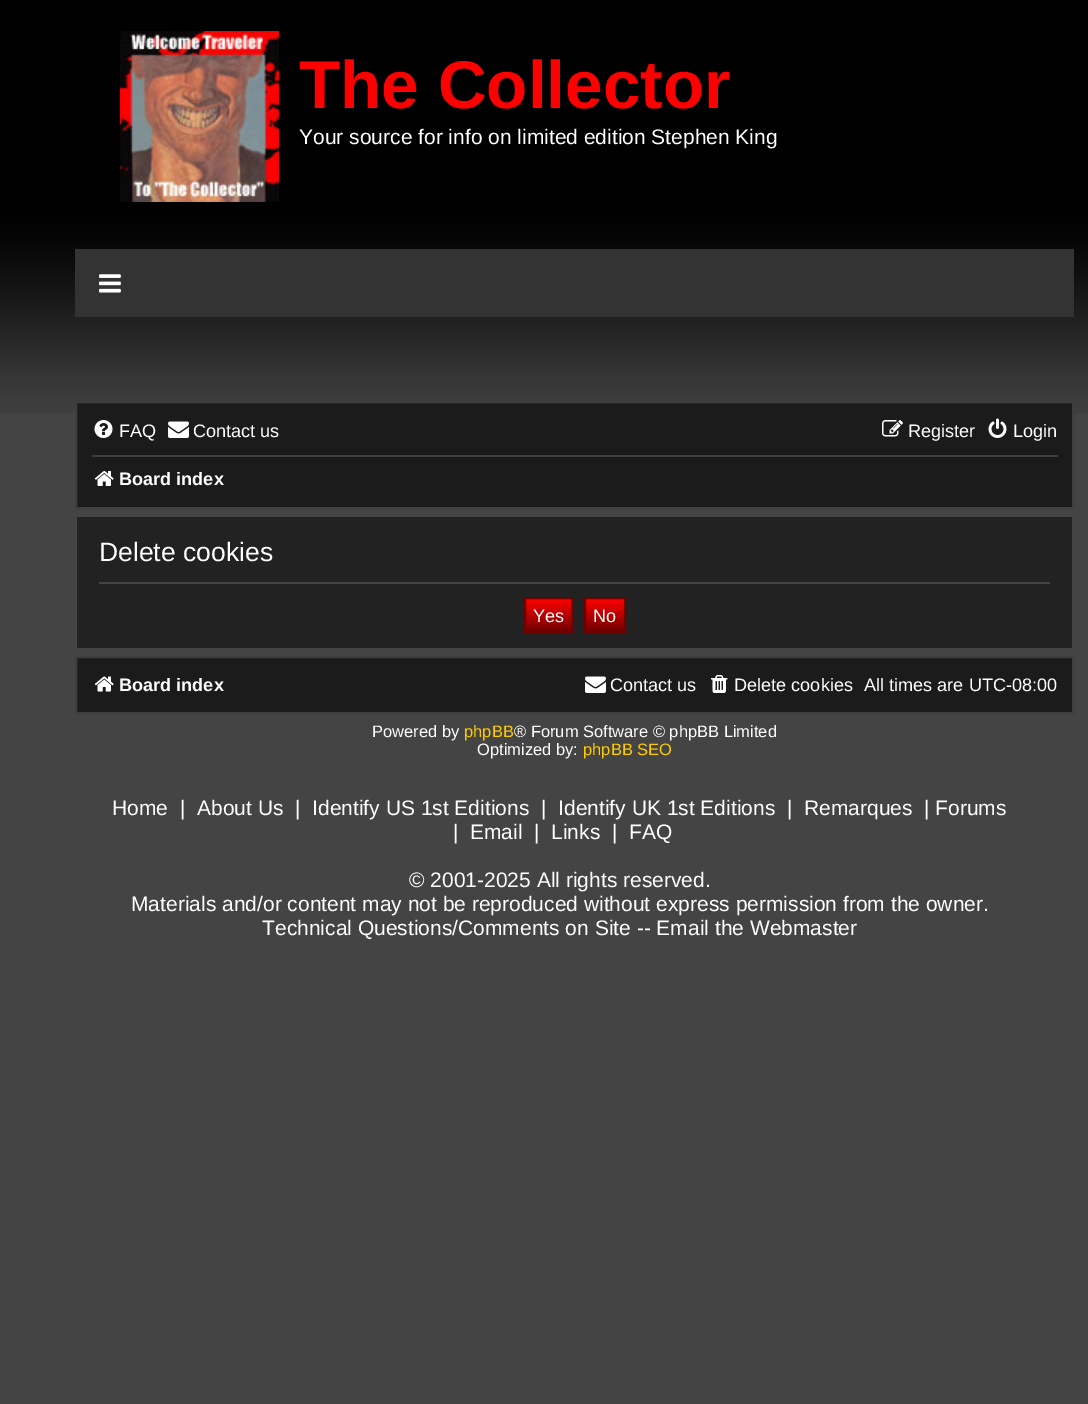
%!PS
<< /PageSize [1088 1404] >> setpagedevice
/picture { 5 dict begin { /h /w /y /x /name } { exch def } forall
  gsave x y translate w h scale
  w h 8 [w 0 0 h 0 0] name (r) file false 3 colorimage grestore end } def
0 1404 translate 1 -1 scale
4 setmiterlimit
0.267 setgray
0 0 1088 1404 rectfill
(img1.rgb) 0 0 1088 414 picture
(img2.rgb) 120 31 159 171 picture
/LiberationSans-Bold [67.5 0 0 -67.5 0 0] selectfont
0.992 0.004 0 setrgbcolor
299 108 moveto (The Collector) show
/LiberationSans-Regular [21 0 0 -21 0 0] selectfont
1 setgray
299 144 moveto (Your source for info on limited edition Stephen King) show
0.2 setgray
75 249 999 68 rectfill
(img3.rgb) 99 274 22 19 picture
0.106 setgray
newpath 76 402 moveto 1073 402 lineto 1073 508 lineto 76 508 lineto closepath gsave fill grestore
0.243 setgray
2 setlinewidth
stroke
(img4.rgb) 94 420 19 18 picture
/LiberationSans-Regular [18.1 0 0 -18.1 0 0] selectfont
1 setgray
119 437 moveto (FAQ) show
(img5.rgb) 168 421 21 17 picture
193 437 moveto (Contact us) show
(img6.rgb) 882 420 21 17 picture
908 437 moveto (Register) show
(img7.rgb) 988 418 19 20 picture
1013 437 moveto (Login) show
0.243 setgray
92 455 966 2 rectfill
(img8.rgb) 94 471 20 15 picture
/LiberationSans-Bold [18.1 0 0 -18.1 0 0] selectfont
1 setgray
119 485 moveto (Board index) show
0.133 setgray
77 517 995 131 rectfill
0.267 setgray
99 582 951 2 rectfill
/LiberationSans-Regular [26.5 0 0 -26.5 0 0] selectfont
1 setgray
99 561 moveto (Delete cookies) show
gsave newpath 526 599 moveto 571 599 lineto 571 631 lineto 526 631 lineto closepath clip newpath
<< /ShadingType 2 /ColorSpace /DeviceRGB /Coords [548 599 548 632] /Extend [true true] /Function << /FunctionType 2 /Domain [0 1] /C0 [0.996 0 0] /C1 [0.435 0 0] /N 1 >> >> shfill grestore
0.435 0 0 setrgbcolor
525 598 47 34 rectstroke
/LiberationSans-Regular [18.1 0 0 -18.1 0 0] selectfont
1 setgray
533 622 moveto (Yes) show
gsave newpath 586 599 moveto 624 599 lineto 624 631 lineto 586 631 lineto closepath clip newpath
<< /ShadingType 2 /ColorSpace /DeviceRGB /Coords [605 599 605 632] /Extend [true true] /Function << /FunctionType 2 /Domain [0 1] /C0 [0.996 0 0] /C1 [0.435 0 0] /N 1 >> >> shfill grestore
0.435 0 0 setrgbcolor
585 598 40 34 rectstroke
1 setgray
593 622 moveto (No) show
0.106 setgray
newpath 76 657 moveto 1073 657 lineto 1073 713 lineto 76 713 lineto closepath gsave fill grestore
0.243 setgray
stroke
(img9.rgb) 94 676 20 16 picture
/LiberationSans-Bold [18.1 0 0 -18.1 0 0] selectfont
1 setgray
119 691 moveto (Board index) show
(img5.rgb) 585 676 21 17 picture
/LiberationSans-Regular [18.1 0 0 -18.1 0 0] selectfont
610 691 moveto (Contact us) show
(img10.rgb) 711 675 17 18 picture
734 691 moveto (Delete cookies) show
864 691 moveto (All times are UTC-08:00) show
/LiberationSans-Regular [16.5 0 0 -16.5 0 0] selectfont
372 737 moveto (Powered by) show
1 0.8 0 setrgbcolor
464 737 moveto (phpBB) show
1 setgray
514 737 moveto (® Forum Software © phpBB Limited) show
477 755 moveto (Optimized by:) show
1 0.8 0 setrgbcolor
583 755 moveto (phpBB SEO) show
/LiberationSans-Regular [21 0 0 -21 0 0] selectfont
1 setgray
112 815 moveto (Home) show
180 815 moveto (|) show
197 815 moveto (About Us) show
295 815 moveto (|) show
312 815 moveto (Identify US 1st Editions) show
541 815 moveto (|) show
558 815 moveto (Identify UK 1st Editions) show
787 815 moveto (|) show
804 815 moveto (Remarques) show
924 815 moveto (| Forums) show
453 839 moveto (|) show
470 839 moveto (Email) show
534 839 moveto (|) show
551 839 moveto (Links) show
612 839 moveto (|) show
629 839 moveto (FAQ) show
409 887 moveto (© 2001-2025 All rights reserved.) show
131 911 moveto (Materials and/or content may not be reproduced without express permission from the owner.) show
262 935 moveto (Technical Questions/Comments on Site -- Email the Webmaster) show
showpage
